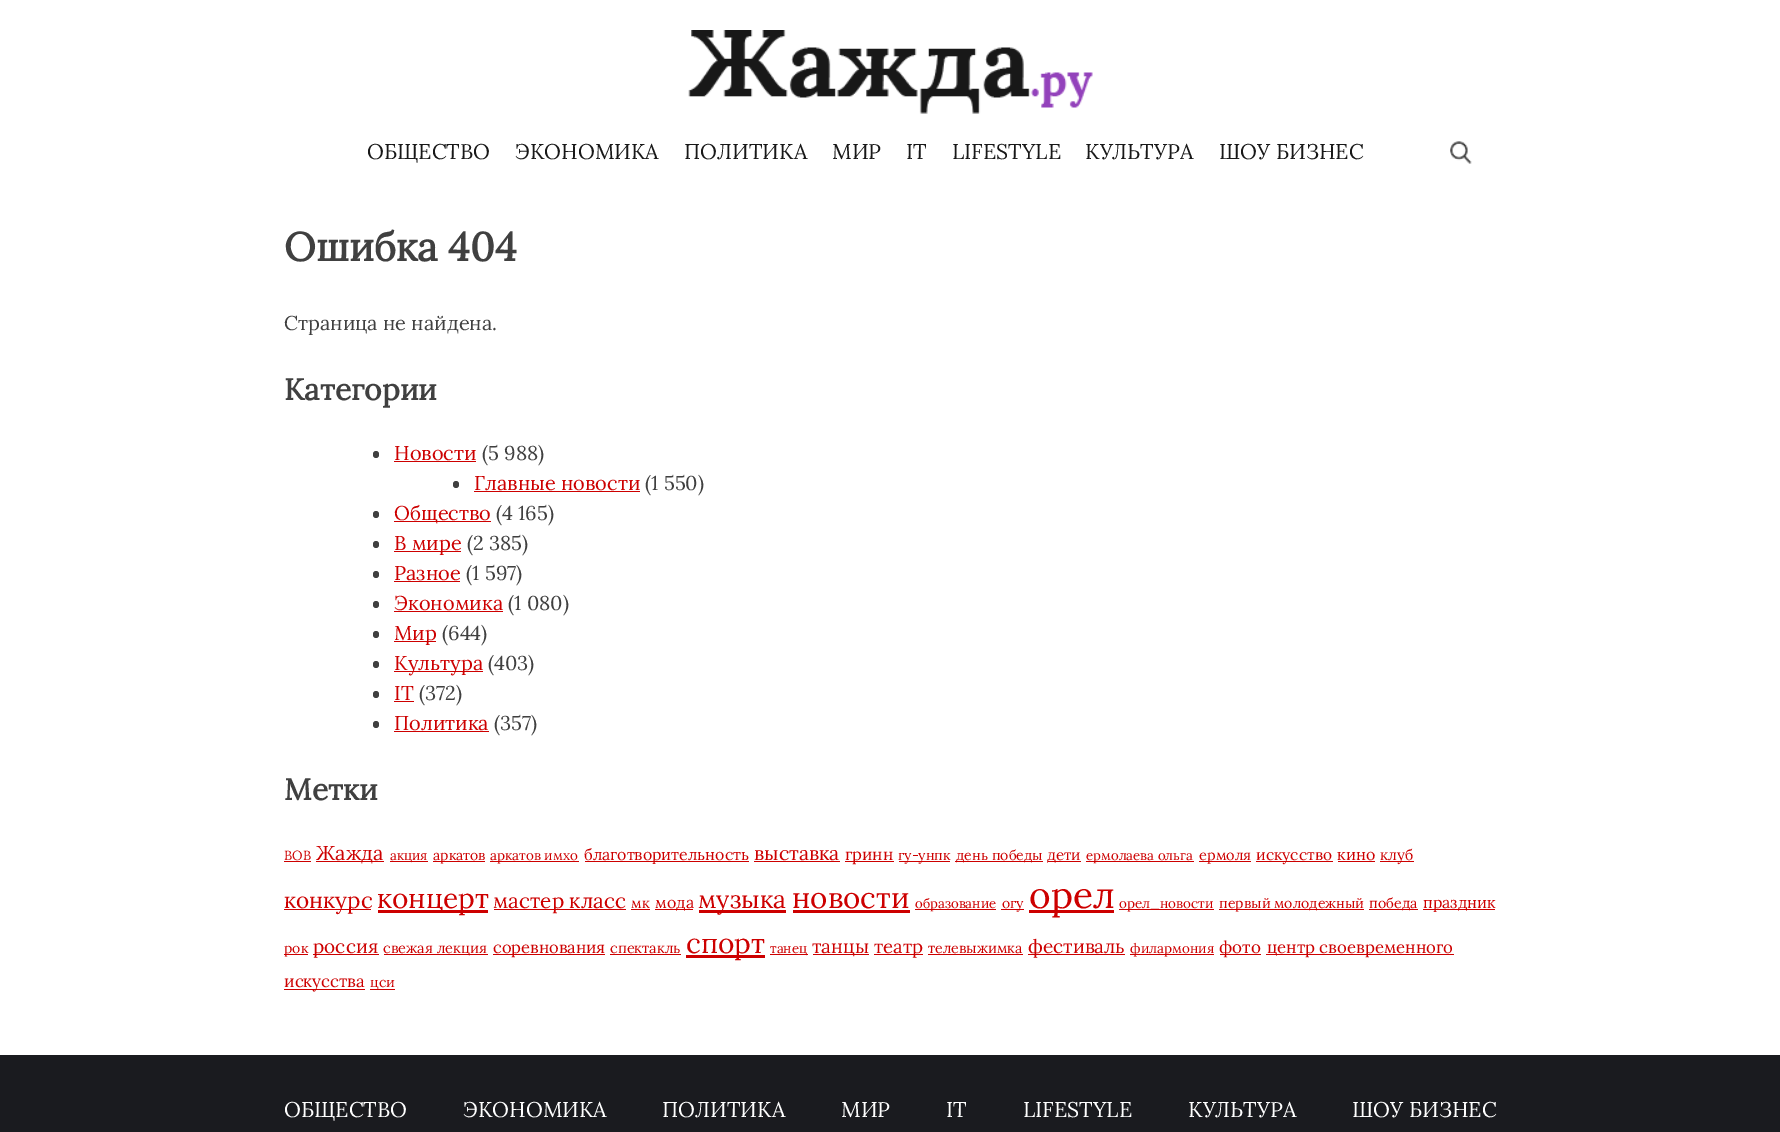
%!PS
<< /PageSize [1780 1132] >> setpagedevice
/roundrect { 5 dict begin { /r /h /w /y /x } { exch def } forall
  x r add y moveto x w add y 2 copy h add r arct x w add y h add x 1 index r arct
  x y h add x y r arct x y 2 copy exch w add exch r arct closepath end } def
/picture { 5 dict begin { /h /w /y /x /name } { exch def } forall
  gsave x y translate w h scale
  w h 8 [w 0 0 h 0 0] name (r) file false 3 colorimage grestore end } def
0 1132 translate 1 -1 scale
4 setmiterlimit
1 setgray
0 0 1780 1132 rectfill
(img1.rgb) 688 30 405 84 picture
/Lora-Regular [21.25 0 0 -21.25 0 0] selectfont
0.094 setgray
367 159 moveto (ОБЩЕСТВО) show
515 159 moveto (ЭКОНОМИКА) show
684 159 moveto (ПОЛИТИКА) show
832 159 moveto (МИР) show
906 159 moveto (IT) show
952 159 moveto (LIFESTYLE) show
1085 159 moveto (КУЛЬТУРА) show
1219 159 moveto (ШОУ БИЗНЕС) show
(img2.rgb) 1450 141 22 23 picture
/Lora-Bold [40 0 0 -40 0 0] selectfont
0.251 setgray
284 261 moveto (Ошибка 404) show
/Lora-Regular [20 0 0 -20 0 0] selectfont
284 330 moveto (Страница не найдена.) show
/Lora-Bold [30 0 0 -30 0 0] selectfont
284 400 moveto (Категории) show
373 451 6 7 3 roundrect fill
/Lora-Regular [20 0 0 -20 0 0] selectfont
0.804 0 0 setrgbcolor
394 460 moveto (Новости) show
394 461 82 1 rectfill
0.251 setgray
482 460 moveto (\(5 988\)) show
453 481 6 7 3 roundrect fill
0.804 0 0 setrgbcolor
474 490 moveto (Главные новости) show
474 491 166 1 rectfill
0.251 setgray
645 490 moveto (\(1 550\)) show
373 511 6 7 3 roundrect fill
0.804 0 0 setrgbcolor
394 521 97 1 rectfill
394 520 moveto (Общество) show
0.251 setgray
496 520 moveto (\(4 165\)) show
373 541 6 7 3 roundrect fill
0.804 0 0 setrgbcolor
394 551 67 1 rectfill
394 550 moveto (В мире) show
0.251 setgray
467 550 moveto (\(2 385\)) show
373 571 6 7 3 roundrect fill
0.804 0 0 setrgbcolor
394 580 moveto (Разное) show
394 581 66 1 rectfill
0.251 setgray
466 580 moveto (\(1 597\)) show
373 601 6 7 3 roundrect fill
0.804 0 0 setrgbcolor
394 610 moveto (Экономика) show
394 611 109 1 rectfill
0.251 setgray
508 610 moveto (\(1 080\)) show
373 631 6 7 3 roundrect fill
0.804 0 0 setrgbcolor
394 641 42 1 rectfill
394 640 moveto (Мир) show
0.251 setgray
442 640 moveto (\(644\)) show
373 661 6 7 3 roundrect fill
0.804 0 0 setrgbcolor
394 671 89 1 rectfill
394 670 moveto (Культура) show
0.251 setgray
488 670 moveto (\(403\)) show
373 691 6 7 3 roundrect fill
0.804 0 0 setrgbcolor
394 700 moveto (IT) show
394 701 20 1 rectfill
0.251 setgray
419 700 moveto (\(372\)) show
373 721 6 7 3 roundrect fill
0.804 0 0 setrgbcolor
394 730 moveto (Политика) show
394 731 95 1 rectfill
0.251 setgray
494 730 moveto (\(357\)) show
/Lora-Bold [30 0 0 -30 0 0] selectfont
284 800 moveto (Метки) show
/Lora-Regular [13.25 0 0 -13.25 0 0] selectfont
0.804 0 0 setrgbcolor
284 860 moveto (ВОВ) show
284 861 27 1 rectfill
316 861 68 1 rectfill
/Lora-Regular [20 0 0 -20 0 0] selectfont
316 860 moveto (Жажда) show
390 861 38 1 rectfill
/Lora-Regular [13.25 0 0 -13.25 0 0] selectfont
390 860 moveto (акция) show
433 861 52 1 rectfill
/Lora-Regular [14 0 0 -14 0 0] selectfont
433 860 moveto (аркатов) show
490 861 89 1 rectfill
/Lora-Regular [13.5 0 0 -13.5 0 0] selectfont
490 860 moveto (аркатов имхо) show
585 861 164 1 rectfill
/Lora-Regular [15.9 0 0 -15.9 0 0] selectfont
584 860 moveto (благотворительность) show
/Lora-Regular [19.5 0 0 -19.5 0 0] selectfont
754 860 moveto (выставка) show
754 861 86 1 rectfill
845 861 49 1 rectfill
/Lora-Regular [16.5 0 0 -16.5 0 0] selectfont
845 860 moveto (гринн) show
899 861 51 1 rectfill
/Lora-Regular [14 0 0 -14 0 0] selectfont
898 860 moveto (гу-унпк) show
955 861 88 1 rectfill
/Lora-Regular [14.1 0 0 -14.1 0 0] selectfont
956 860 moveto (день победы) show
1048 861 33 1 rectfill
/Lora-Regular [15 0 0 -15 0 0] selectfont
1047 860 moveto (дети) show
1086 861 108 1 rectfill
/Lora-Regular [13.25 0 0 -13.25 0 0] selectfont
1086 860 moveto (ермолаева ольга) show
1199 861 52 1 rectfill
/Lora-Regular [14.5 0 0 -14.5 0 0] selectfont
1199 860 moveto (ермоля) show
1256 861 77 1 rectfill
/Lora-Regular [15.5 0 0 -15.5 0 0] selectfont
1256 860 moveto (искусство) show
/Lora-Regular [16 0 0 -16 0 0] selectfont
1337 860 moveto (кино) show
1338 861 37 1 rectfill
1380 861 34 1 rectfill
/Lora-Regular [15 0 0 -15 0 0] selectfont
1380 860 moveto (клуб) show
284 909 87 1 rectfill
/Lora-Regular [22.5 0 0 -22.5 0 0] selectfont
284 908 moveto (конкурс) show
378 910 110 3 rectfill
/Lora-Regular [28 0 0 -28 0 0] selectfont
377 908 moveto (концерт) show
494 909 132 1 rectfill
/Lora-Regular [20.75 0 0 -20.75 0 0] selectfont
493 908 moveto (мастер класс) show
/Lora-Regular [14.5 0 0 -14.5 0 0] selectfont
631 908 moveto (мк) show
631 909 19 1 rectfill
655 909 38 1 rectfill
/Lora-Regular [16 0 0 -16 0 0] selectfont
655 908 moveto (мода) show
699 910 87 3 rectfill
/Lora-Regular [25 0 0 -25 0 0] selectfont
698 908 moveto (музыка) show
/Lora-Regular [29.5 0 0 -29.5 0 0] selectfont
792 908 moveto (новости) show
793 910 117 3 rectfill
915 909 81 1 rectfill
/Lora-Regular [13.25 0 0 -13.25 0 0] selectfont
915 908 moveto (образование) show
1001 909 23 1 rectfill
/Lora-Regular [14 0 0 -14 0 0] selectfont
1002 908 moveto (огу) show
1029 910 85 3 rectfill
/Lora-Regular [37 0 0 -37 0 0] selectfont
1029 908 moveto (орел) show
1119 909 95 1 rectfill
/Lora-Regular [13.5 0 0 -13.5 0 0] selectfont
1119 908 moveto (орел_новости) show
1219 909 145 1 rectfill
/Lora-Regular [14.1 0 0 -14.1 0 0] selectfont
1219 908 moveto (первый молодежный) show
1369 909 49 1 rectfill
/Lora-Regular [14.25 0 0 -14.25 0 0] selectfont
1369 908 moveto (победа) show
1423 909 72 1 rectfill
/Lora-Regular [15.9 0 0 -15.9 0 0] selectfont
1423 908 moveto (праздник) show
284 954 24 1 rectfill
/Lora-Regular [14 0 0 -14 0 0] selectfont
284 953 moveto (рок) show
313 954 66 1 rectfill
/Lora-Regular [19 0 0 -19 0 0] selectfont
313 953 moveto (россия) show
384 954 104 1 rectfill
/Lora-Regular [14.5 0 0 -14.5 0 0] selectfont
383 953 moveto (свежая лекция) show
493 954 112 1 rectfill
/Lora-Regular [16.5 0 0 -16.5 0 0] selectfont
493 953 moveto (соревнования) show
/Lora-Regular [14.5 0 0 -14.5 0 0] selectfont
610 953 moveto (спектакль) show
610 954 71 1 rectfill
686 955 79 3 rectfill
/Lora-Regular [28 0 0 -28 0 0] selectfont
686 953 moveto (спорт) show
770 954 38 1 rectfill
/Lora-Regular [13.25 0 0 -13.25 0 0] selectfont
770 953 moveto (танец) show
813 954 56 1 rectfill
/Lora-Regular [19 0 0 -19 0 0] selectfont
812 953 moveto (танцы) show
874 954 49 1 rectfill
/Lora-Regular [18.5 0 0 -18.5 0 0] selectfont
874 953 moveto (театр) show
/Lora-Regular [14.25 0 0 -14.25 0 0] selectfont
928 953 moveto (телевыжимка) show
928 954 95 1 rectfill
1028 954 97 1 rectfill
/Lora-Regular [19 0 0 -19 0 0] selectfont
1028 953 moveto (фестиваль) show
1130 954 84 1 rectfill
/Lora-Regular [13.5 0 0 -13.5 0 0] selectfont
1130 953 moveto (филармония) show
1220 954 41 1 rectfill
/Lora-Regular [17 0 0 -17 0 0] selectfont
1219 953 moveto (фото) show
1266 954 188 1 rectfill
/Lora-Regular [16.75 0 0 -16.75 0 0] selectfont
1267 953 moveto (центр своевременного) show
284 989 81 1 rectfill
284 987 moveto (искусства) show
370 989 25 1 rectfill
/Lora-Regular [14 0 0 -14 0 0] selectfont
370 987 moveto (цси) show
0.102 0.106 0.122 setrgbcolor
0 1055 1780 77 rectfill
/Lora-Regular [21.25 0 0 -21.25 0 0] selectfont
1 setgray
284 1117 moveto (ОБЩЕСТВО) show
463 1117 moveto (ЭКОНОМИКА) show
662 1117 moveto (ПОЛИТИКА) show
841 1117 moveto (МИР) show
946 1117 moveto (IT) show
1023 1117 moveto (LIFESTYLE) show
1188 1117 moveto (КУЛЬТУРА) show
1352 1117 moveto (ШОУ БИЗНЕС) show
showpage
